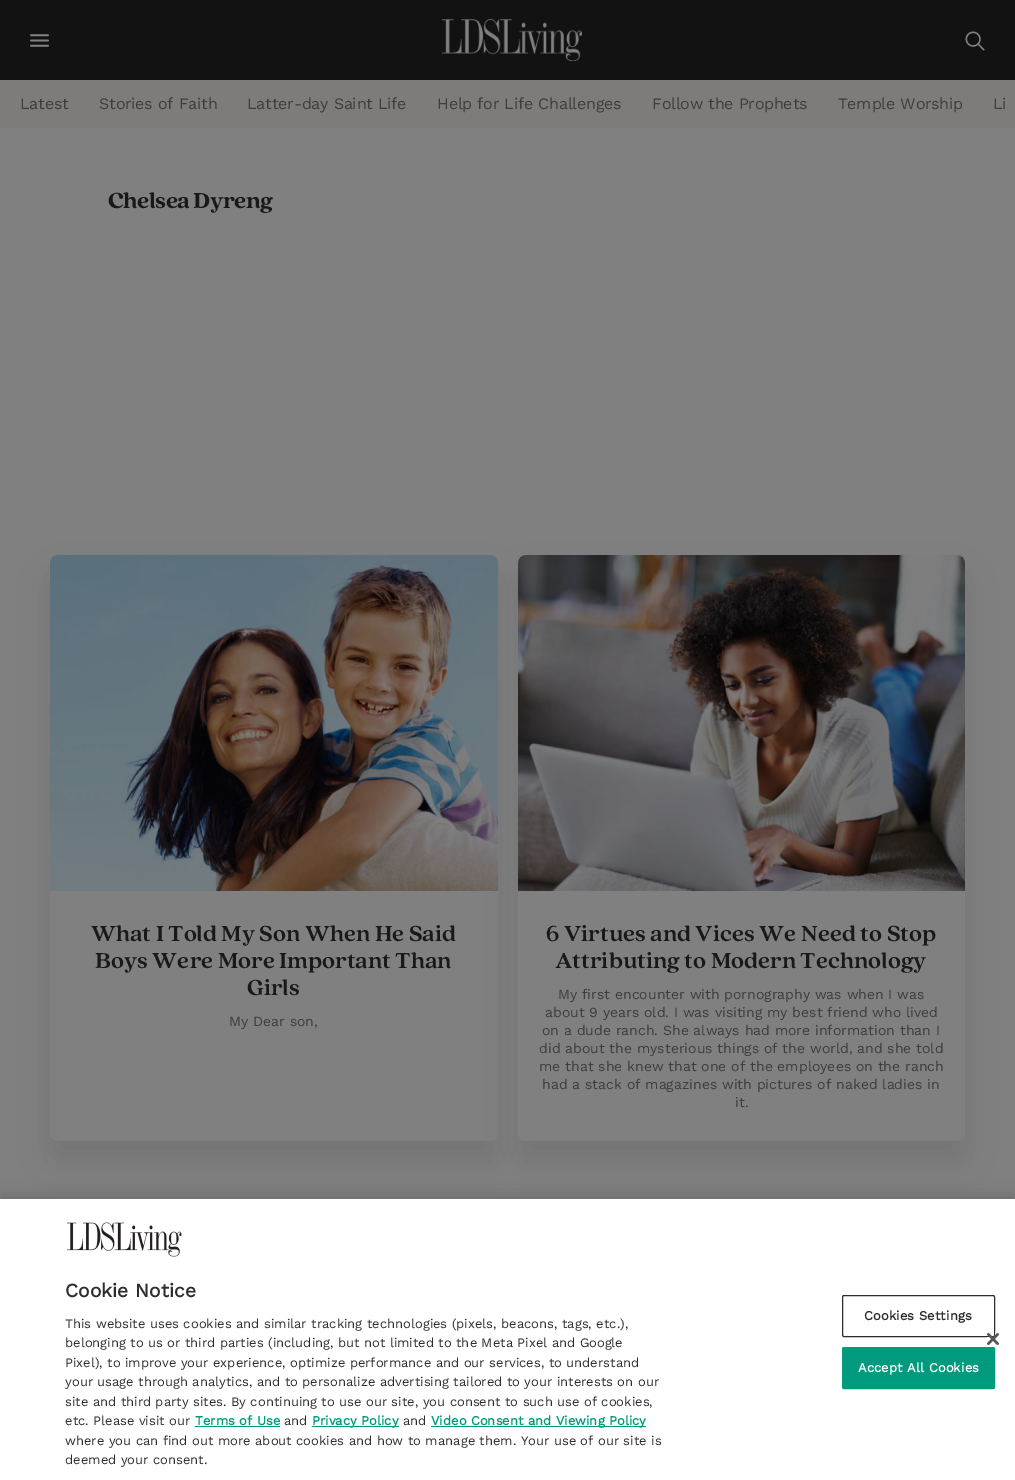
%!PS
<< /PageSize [1015 1480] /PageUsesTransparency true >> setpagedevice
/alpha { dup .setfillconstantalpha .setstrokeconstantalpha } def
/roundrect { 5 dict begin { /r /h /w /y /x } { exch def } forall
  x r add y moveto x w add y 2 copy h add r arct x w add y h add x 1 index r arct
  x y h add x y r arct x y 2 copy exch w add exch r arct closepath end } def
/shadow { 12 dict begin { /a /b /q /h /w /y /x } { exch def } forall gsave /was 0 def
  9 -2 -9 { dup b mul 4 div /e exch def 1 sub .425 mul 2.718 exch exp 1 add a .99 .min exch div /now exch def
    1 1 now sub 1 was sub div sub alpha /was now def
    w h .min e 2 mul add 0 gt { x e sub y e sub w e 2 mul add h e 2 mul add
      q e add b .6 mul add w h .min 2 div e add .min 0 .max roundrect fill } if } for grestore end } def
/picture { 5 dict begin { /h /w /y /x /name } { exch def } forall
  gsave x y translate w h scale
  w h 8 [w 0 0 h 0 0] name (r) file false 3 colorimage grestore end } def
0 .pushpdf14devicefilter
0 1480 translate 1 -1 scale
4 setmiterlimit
0.502 setgray
0 0 1015 1480 rectfill
0.071 setgray
0 0 1015 80 rectfill
(img1.rgb) 30 34 19 13 picture
(img2.rgb) 442 19 140 42 picture
(img3.rgb) 965 31 20 20 picture
0.494 0.486 0.478 setrgbcolor
0 80 1015 48 rectfill
/WorkSans-Regular [16 0 0 -16 0 0] selectfont
0.239 setgray
20 109 moveto -0.2 0 (Latest) ashow
99 109 moveto -0.2 0 (Stories of Faith) ashow
247 109 moveto -0.2 0 (Latter-day Saint Life) ashow
437 109 moveto -0.2 0 (Help for Life Challenges) ashow
652 109 moveto -0.2 0 (Follow the Prophets) ashow
838 109 moveto -0.2 0 (Temple Worship) ashow
gsave
10 80 995 48 rectclip
993 109 moveto -0.2 0 (Li) ashow
grestore
/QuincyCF-ExtraBold [24 0 0 -24 0 0] selectfont
0.098 setgray
108 208 moveto -0.6 0 (Chelsea Dyreng) ashow
0 setgray
50 575 448 586 8 15 0.1 shadow
0.502 setgray
50 555 448 586 8 roundrect fill
(img4.rgb) 50 555 448 336 picture
/QuincyCF-Bold [24 0 0 -24 0 0] selectfont
0.098 setgray
91 941 moveto (What I Told My Son When He Said) show
95 968 moveto (Boys Were More Important Than) show
247 995 moveto (Girls) show
/WorkSans-Regular [14 0 0 -14 0 0] selectfont
0.239 setgray
229 1026 moveto (My Dear son,) show
0 setgray
518 575 447 586 8 15 0.1 shadow
0.502 setgray
518 555 447 586 8 roundrect fill
(img5.rgb) 518 555 447 336 picture
/QuincyCF-Bold [24 0 0 -24 0 0] selectfont
0.098 setgray
546 941 moveto (6 Virtues and Vices We Need to Stop) show
555 968 moveto (Attributing to Modern Technology) show
/WorkSans-Regular [14 0 0 -14 0 0] selectfont
0.239 setgray
558 999 moveto (My first encounter with pornography was when I was) show
545 1017 moveto (about 9 years old. I was visiting my best friend who lived) show
542 1035 moveto (on a dude ranch. She always had more information than I) show
539 1053 moveto (did about the mysterious things of the world, and she told) show
539 1071 moveto (me that she knew that one of the employees on the ranch) show
542 1089 moveto (had a stack of magazines with pictures of naked ladies in) show
735 1107 moveto (it.) show
0 setgray
0 1199 1015 281 0 9 0.2 shadow
1 setgray
0 1199 1015 281 rectfill
(img6.rgb) 67 1222 115 35 picture
/WorkSans-Bold [19.25 0 0 -19.25 0 0] selectfont
0.169 0.18 0.188 setrgbcolor
65 1297 moveto (Cookie Notice) show
/WorkSans-Regular [13 0 0 -13 0 0] selectfont
65 1328 moveto (This website uses cookies and similar tracking technologies \(pixels, beacons, tags, etc.\),) show
65 1347 moveto (belonging to us or third parties \(including, but not limited to the Meta Pixel and Google) show
65 1367 moveto (Pixel\), to improve your experience, optimize performance and our services, to understand) show
65 1386 moveto (your usage through analytics, and to personalize advertising tailored to your interests on our) show
65 1406 moveto (site and third party sites. By continuing to use our site, you consent to such use of cookies,) show
65 1425 moveto (etc. Please visit our) show
/WorkSans-Bold [13 0 0 -13 0 0] selectfont
0 0.604 0.498 setrgbcolor
195 1425 moveto (Terms of Use) show
195 1426 85 1 rectfill
/WorkSans-Regular [13 0 0 -13 0 0] selectfont
0.169 0.18 0.188 setrgbcolor
284 1425 moveto (and) show
0 0.604 0.498 setrgbcolor
312 1426 87 1 rectfill
/WorkSans-Bold [13 0 0 -13 0 0] selectfont
312 1425 moveto (Privacy Policy) show
/WorkSans-Regular [13 0 0 -13 0 0] selectfont
0.169 0.18 0.188 setrgbcolor
403 1425 moveto (and) show
0 0.604 0.498 setrgbcolor
431 1426 215 1 rectfill
/WorkSans-Bold [13 0 0 -13 0 0] selectfont
431 1425 moveto (Video Consent and Viewing Policy) show
/WorkSans-Regular [13 0 0 -13 0 0] selectfont
0.169 0.18 0.188 setrgbcolor
65 1445 moveto (where you can find out more about cookies and how to manage them. Your use of our site is) show
65 1464 moveto (deemed your consent.) show
842.5 1295.5 152 41 1.5 roundrect stroke
/WorkSans-Bold [13 0 0 -13 0 0] selectfont
864 1320 moveto 0.1 0 (Cookies Settings) ashow
0 0.604 0.498 setrgbcolor
842.5 1347.5 152 41 1.5 roundrect gsave fill grestore
stroke
1 setgray
858 1372 moveto 0.1 0 (Accept All Cookies) ashow
(img7.rgb) 987 1333 12 12 picture
.poppdf14devicefilter showpage
